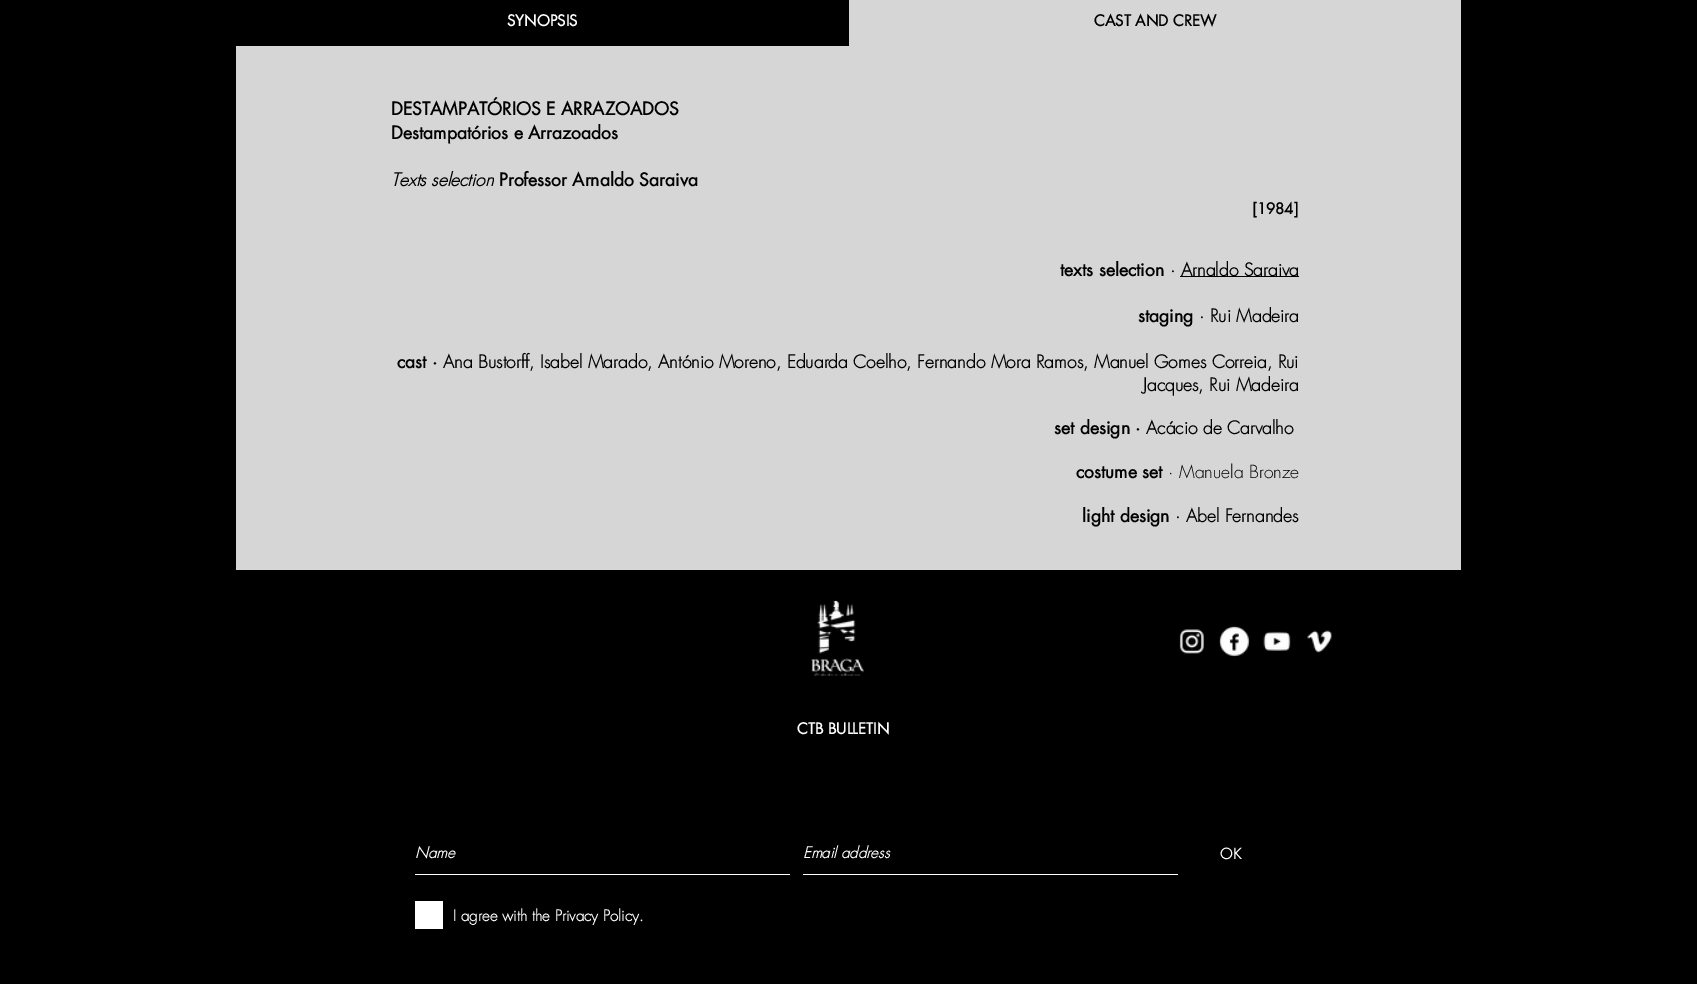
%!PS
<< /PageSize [1697 984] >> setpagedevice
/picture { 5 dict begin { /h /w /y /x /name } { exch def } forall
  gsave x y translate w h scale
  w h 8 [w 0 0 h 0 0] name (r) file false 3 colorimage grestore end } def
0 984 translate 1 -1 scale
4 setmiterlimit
0 setgray
0 0 1697 984 rectfill
0.839 setgray
236 0 1225 570 rectfill
0 setgray
236 0 613 46 rectfill
/futura-Bold [15 0 0 -15 0 0] selectfont
1 setgray
507 26 moveto (SYNOPSIS) show
0 setgray
1094 26 moveto (CAST AND CREW) show
/futura-Bold [17.5 0 0 -17.5 0 0] selectfont
391 115 moveto (DESTAMPATÓRIOS E ARRAZOADOS) show
391 139 moveto (Destampatórios e Arrazoados) show
/futura-BoldItalic [17.5 0 0 -17.5 0 0] selectfont
391 186 moveto (Texts selection) show
/futura-Bold [17.5 0 0 -17.5 0 0] selectfont
499 186 moveto (Professor Arnaldo Saraiva) show
/futura-Bold [15 0 0 -15 0 0] selectfont
1252 214 moveto ([1984]) show
/futura-Bold [17.5 0 0 -17.5 0 0] selectfont
1060 276 moveto (texts selection) show
/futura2-Bold [17.5 0 0 -17.5 0 0] selectfont
1170 276 moveto (·) show
1180 276 119 1 rectfill
1181 276 moveto (Arnaldo Saraiva) show
/futura-Bold [17.5 0 0 -17.5 0 0] selectfont
1138 322 moveto (staging) show
/futura2-Bold [17.5 0 0 -17.5 0 0] selectfont
1199 322 moveto (· Rui Madeira) show
/futura-Bold [17.5 0 0 -17.5 0 0] selectfont
397 368 moveto (cast ·) show
/futura2-Bold [17.5 0 0 -17.5 0 0] selectfont
443 368 moveto (Ana Bustorff, Isabel Marado, António Moreno, Eduarda Coelho, Fernando Mora Ramos, Manuel Gomes Correia, Rui) show
1143 391 moveto (Jacques, Rui Madeira) show
/futura-Bold [17.5 0 0 -17.5 0 0] selectfont
1054 434 moveto (set design ·) show
/futura2-Bold [17.5 0 0 -17.5 0 0] selectfont
1146 434 moveto (Acácio de Carvalho) show
/futura-Bold [17.5 0 0 -17.5 0 0] selectfont
1076 478 moveto (costume set) show
/futura-Light [17.5 0 0 -17.5 0 0] selectfont
1168 478 moveto (· Manuela Bronze) show
/futura-Bold [17.5 0 0 -17.5 0 0] selectfont
1082 522 moveto (light design) show
/futura2-Bold [17.5 0 0 -17.5 0 0] selectfont
1175 522 moveto (· Abel Fernandes) show
(img1.rgb) 811 600 53 76 picture
(img2.rgb) 1179 629 25 25 picture
(img3.rgb) 1219 626 31 31 picture
(img4.rgb) 1263 631 28 20 picture
(img5.rgb) 1307 630 25 23 picture
/futura-Bold [15 0 0 -15 0 0] selectfont
1 setgray
797 734 moveto (CTB BULLETIN) show
415 874 375 1 rectfill
/futura-BoldItalic [15 0 0 -15 0 0] selectfont
415 858 moveto (Name) show
803 874 375 1 rectfill
803 858 moveto (Email address) show
/futura-Regular [15 0 0 -15 0 0] selectfont
1220 859 moveto (OK) show
415 901 28 28 rectfill
/futura2-Bold [15 0 0 -15 0 0] selectfont
453 921 moveto (I agree with the Privacy Policy.) show
showpage
